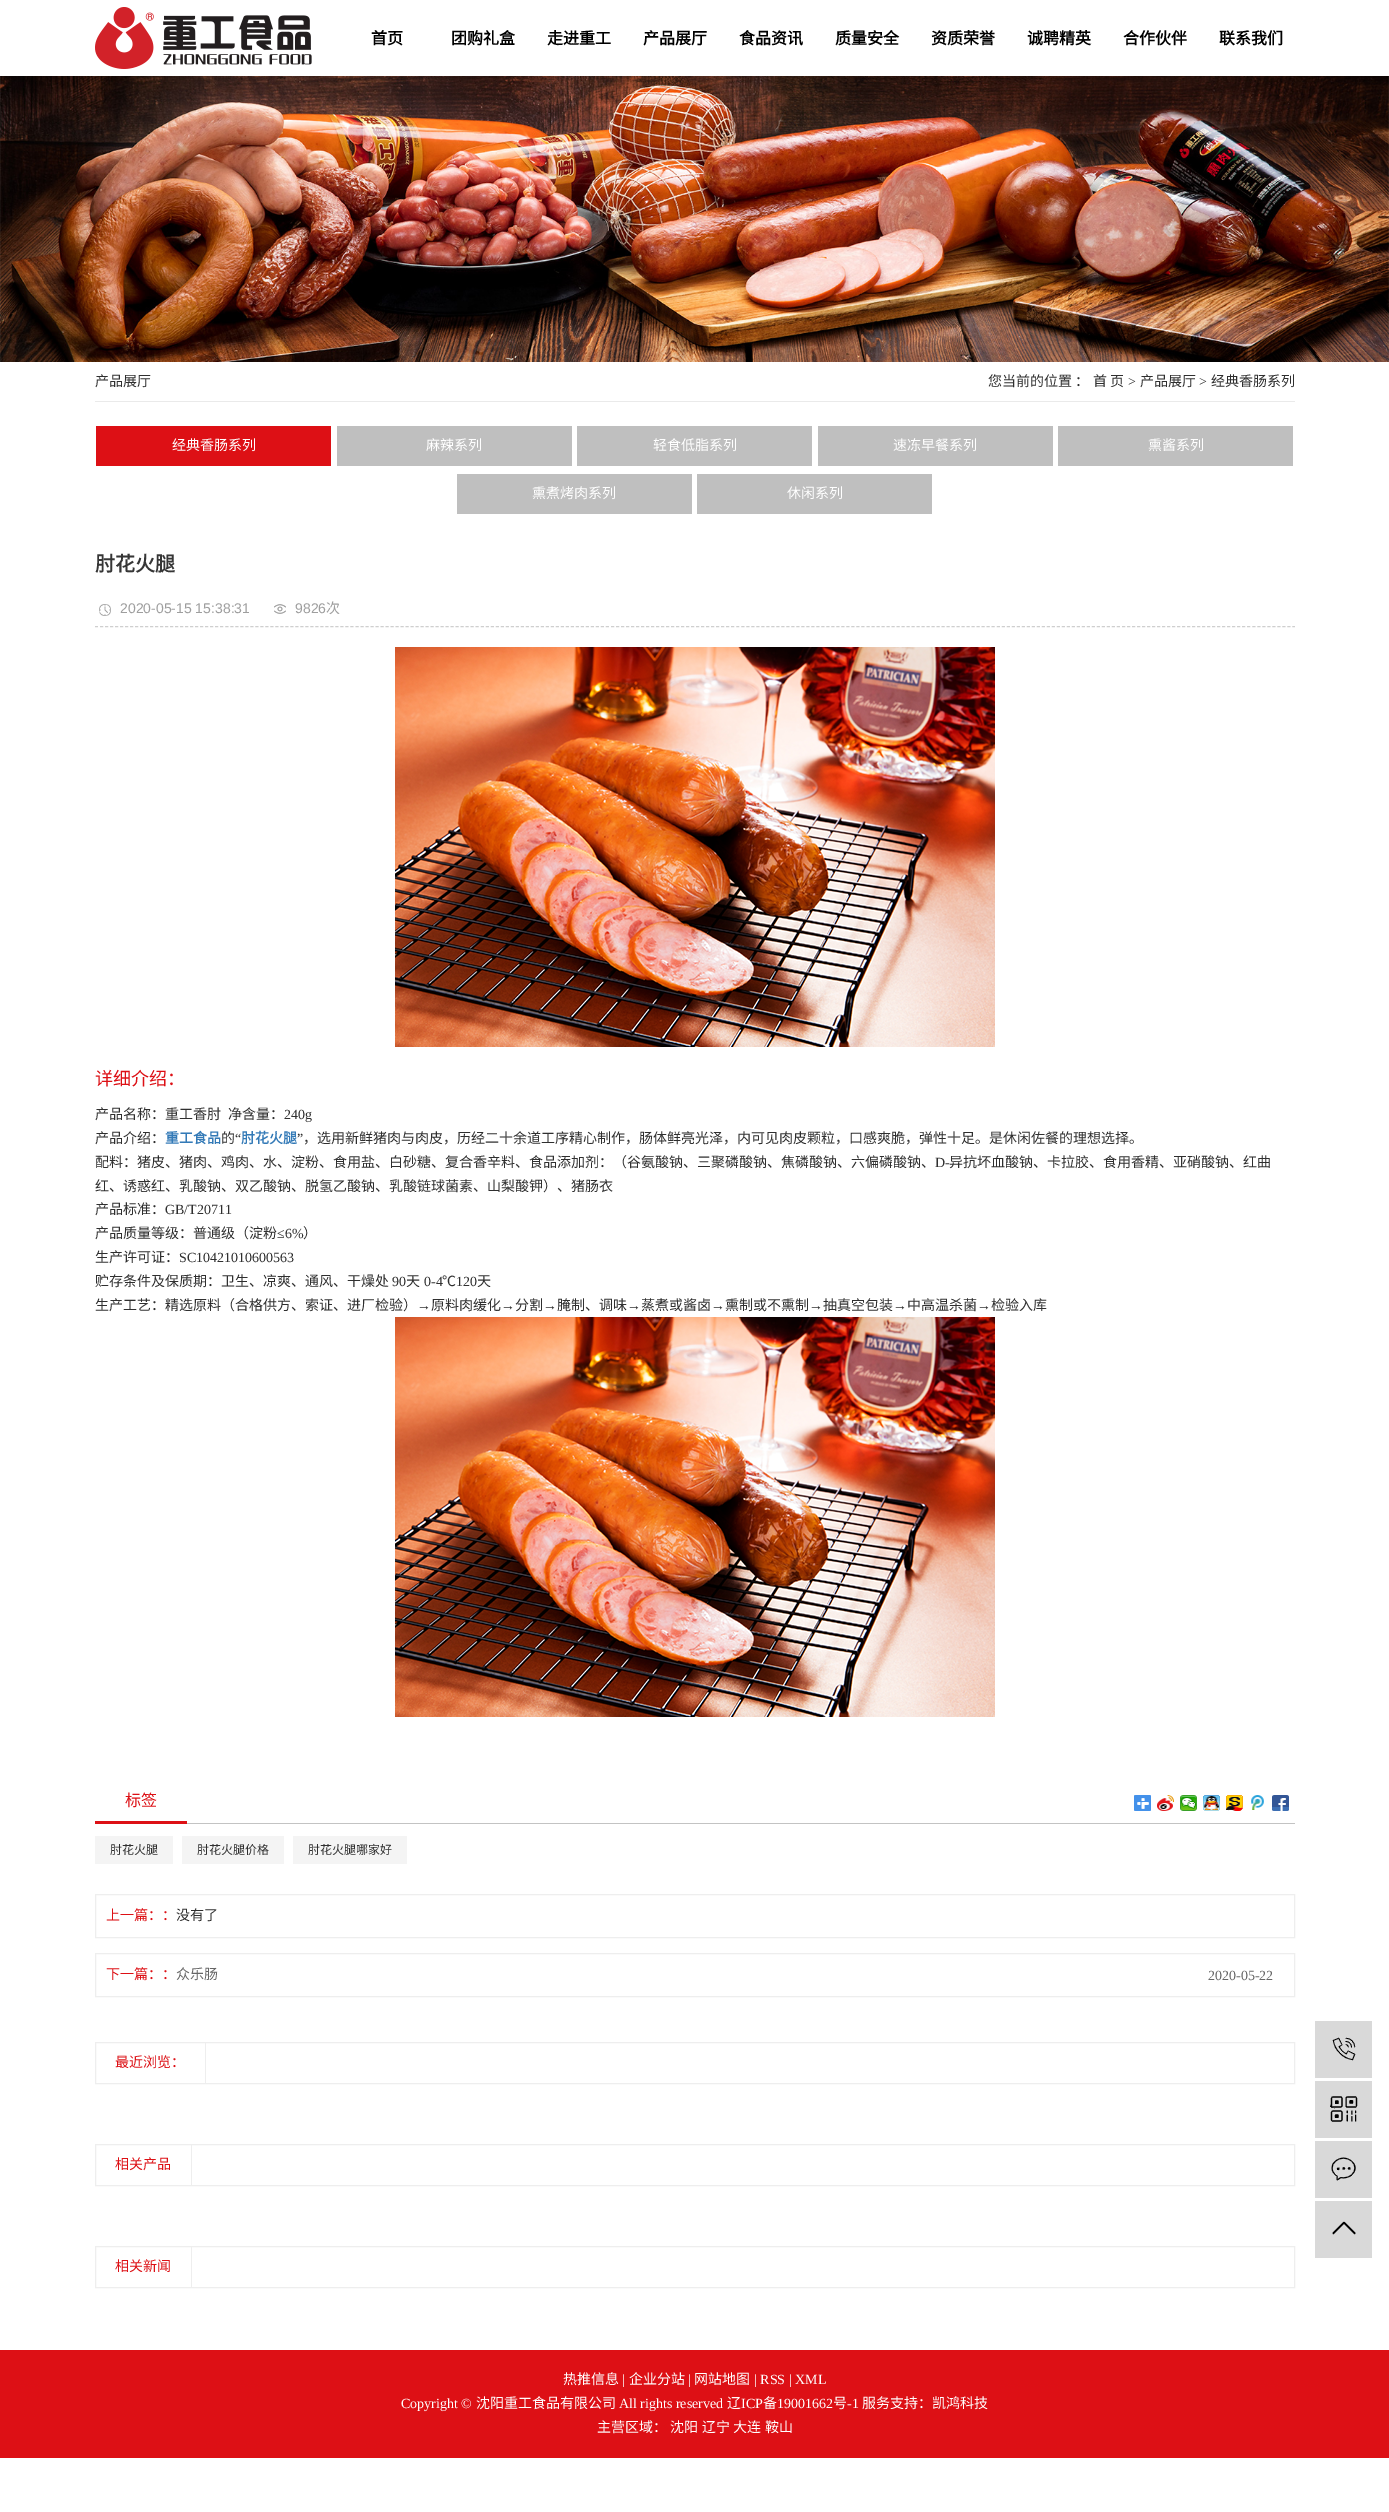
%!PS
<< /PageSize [1389 2512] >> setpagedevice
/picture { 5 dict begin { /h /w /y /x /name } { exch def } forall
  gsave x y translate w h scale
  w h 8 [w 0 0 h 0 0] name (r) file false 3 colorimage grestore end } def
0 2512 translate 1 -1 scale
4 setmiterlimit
1 setgray
0 0 1389 2512 rectfill
(img1.rgb) 95 7 217 62 picture
/NotoSansCJKSC-Bold [16 0 0 -16 0 0] selectfont
0 setgray
371 44 moveto (首页) show
451 44 moveto (团购礼盒) show
547 44 moveto (走进重工) show
643 44 moveto (产品展厅) show
739 44 moveto (食品资讯) show
835 44 moveto (质量安全) show
931 44 moveto (资质荣誉) show
1027 44 moveto (诚聘精英) show
1123 44 moveto (合作伙伴) show
1219 44 moveto (联系我们) show
(img2.rgb) 0 76 1389 286 picture
0.918 setgray
95 401 1200 1 rectfill
/NotoSansCJKSC-Regular [14 0 0 -14 0 0] selectfont
0.184 setgray
95 386 moveto (产品展厅) show
988 386 moveto (您当前的位置 ：) show
1093 386 moveto (首 页) show
/LiberationSerif-Regular [14 0 0 -14 0 0] selectfont
1128 386 moveto (>) show
/NotoSansCJKSC-Regular [14 0 0 -14 0 0] selectfont
1140 386 moveto (产品展厅) show
/LiberationSerif-Regular [14 0 0 -14 0 0] selectfont
1199 386 moveto (>) show
/NotoSansCJKSC-Regular [14 0 0 -14 0 0] selectfont
1211 386 moveto (经典香肠系列) show
0.867 0.063 0.082 setrgbcolor
96 426 235 40 rectfill
1 setgray
172 450 moveto (经典香肠系列) show
0.749 setgray
337 426 235 40 rectfill
1 setgray
426 450 moveto (麻辣系列) show
0.749 setgray
577 426 235 40 rectfill
1 setgray
653 450 moveto (轻食低脂系列) show
0.749 setgray
818 426 235 40 rectfill
1 setgray
893 450 moveto (速冻早餐系列) show
0.749 setgray
1058 426 235 40 rectfill
1 setgray
1148 450 moveto (熏酱系列) show
0.749 setgray
457 474 235 40 rectfill
1 setgray
532 498 moveto (熏煮烤肉系列) show
0.749 setgray
697 474 235 40 rectfill
1 setgray
787 498 moveto (休闲系列) show
/NotoSansCJKSC-Bold [20 0 0 -20 0 0] selectfont
0.212 setgray
95 571 moveto (肘花火腿) show
0.812 setgray
[3 2.01] 0 setdash
newpath 95 626.5 moveto 1295 626.5 lineto stroke
(img3.rgb) 99 604 12 12 picture
/LiberationSans-Regular [14 0 0 -14 0 0] selectfont
0.62 setgray
120 613 moveto (2020-05-15 15:38:31) show
(img4.rgb) 274 604 12 10 picture
295 613 moveto (9826) show
/NotoSansCJKSC-Regular [14 0 0 -14 0 0] selectfont
326 613 moveto (次) show
(img5.rgb) 395 647 600 400 picture
/NotoSansCJKSC-Regular [18 0 0 -18 0 0] selectfont
0.867 0.063 0.082 setrgbcolor
95 1085 moveto (详细介绍：) show
/NotoSansCJKSC-Regular [14 0 0 -14 0 0] selectfont
0.184 setgray
95 1119 moveto (产品名称：重工香肘) show
228 1119 moveto (净含量：) show
/LiberationSerif-Regular [14 0 0 -14 0 0] selectfont
284 1119 moveto (240g) show
/NotoSansCJKSC-Regular [14 0 0 -14 0 0] selectfont
95 1143 moveto (产品介绍：) show
/NotoSansCJKSC-Bold [14 0 0 -14 0 0] selectfont
0.2 0.478 0.718 setrgbcolor
165 1143 moveto (重工食品) show
/NotoSansCJKSC-Regular [14 0 0 -14 0 0] selectfont
0.184 setgray
221 1143 moveto (的) show
/LiberationSerif-Regular [14 0 0 -14 0 0] selectfont
235 1143 moveto (“) show
/NotoSansCJKSC-Bold [14 0 0 -14 0 0] selectfont
0.2 0.478 0.718 setrgbcolor
241 1143 moveto (肘花火腿) show
/LiberationSerif-Regular [14 0 0 -14 0 0] selectfont
0.184 setgray
297 1143 moveto (”) show
/NotoSansCJKSC-Regular [14 0 0 -14 0 0] selectfont
303 1143 moveto (，选用新鲜猪肉与肉皮，历经二十余道工序精心制作，肠体鲜亮光泽，内可见肉皮颗粒，口感爽脆，弹性十足。是休闲佐餐的理想选择。) show
95 1167 moveto (配料：猪皮、猪肉、鸡肉、水、淀粉、食用盐、白砂糖、复合香辛料、食品添加剂：（谷氨酸钠、三聚磷酸钠、焦磷酸钠、六偏磷酸钠、) show
/LiberationSerif-Regular [14 0 0 -14 0 0] selectfont
935 1167 moveto (D-) show
/NotoSansCJKSC-Regular [14 0 0 -14 0 0] selectfont
949 1167 moveto (异抗坏血酸钠、卡拉胶、食用香精、亚硝酸钠、红曲) show
95 1191 moveto (红、诱惑红、乳酸钠、双乙酸钠、脱氢乙酸钠、乳酸链球菌素、山梨酸钾）、猪肠衣) show
95 1214 moveto (产品标准：) show
/LiberationSerif-Regular [14 0 0 -14 0 0] selectfont
165 1214 moveto (GB/T20711) show
/NotoSansCJKSC-Regular [14 0 0 -14 0 0] selectfont
95 1238 moveto (产品质量等级：普通级（淀粉) show
/LiberationSerif-Regular [14 0 0 -14 0 0] selectfont
277 1238 moveto (≤6%) show
/NotoSansCJKSC-Regular [14 0 0 -14 0 0] selectfont
303 1238 moveto (）) show
95 1262 moveto (生产许可证：) show
/LiberationSerif-Regular [14 0 0 -14 0 0] selectfont
179 1262 moveto (SC10421010600563) show
/NotoSansCJKSC-Regular [14 0 0 -14 0 0] selectfont
95 1286 moveto (贮存条件及保质期：卫生、凉爽、通风、干燥处) show
/LiberationSerif-Regular [14 0 0 -14 0 0] selectfont
392 1286 moveto (90) show
/NotoSansCJKSC-Regular [14 0 0 -14 0 0] selectfont
406 1286 moveto (天) show
/LiberationSerif-Regular [14 0 0 -14 0 0] selectfont
424 1286 moveto (0-4) show
/NotoSansCJKSC-Regular [14 0 0 -14 0 0] selectfont
442 1286 moveto (℃) show
/LiberationSerif-Regular [14 0 0 -14 0 0] selectfont
456 1286 moveto (120) show
/NotoSansCJKSC-Regular [14 0 0 -14 0 0] selectfont
477 1286 moveto (天) show
95 1310 moveto (生产工艺：精选原料（合格供方、索证、进厂检验）) show
/LiberationSerif-Regular [14 0 0 -14 0 0] selectfont
417 1310 moveto (→) show
/NotoSansCJKSC-Regular [14 0 0 -14 0 0] selectfont
431 1310 moveto (原料肉缓化) show
/LiberationSerif-Regular [14 0 0 -14 0 0] selectfont
501 1310 moveto (→) show
/NotoSansCJKSC-Regular [14 0 0 -14 0 0] selectfont
515 1310 moveto (分割) show
/LiberationSerif-Regular [14 0 0 -14 0 0] selectfont
543 1310 moveto (→) show
/NotoSansCJKSC-Regular [14 0 0 -14 0 0] selectfont
557 1310 moveto (腌制、调味) show
/LiberationSerif-Regular [14 0 0 -14 0 0] selectfont
627 1310 moveto (→) show
/NotoSansCJKSC-Regular [14 0 0 -14 0 0] selectfont
641 1310 moveto (蒸煮或酱卤) show
/LiberationSerif-Regular [14 0 0 -14 0 0] selectfont
711 1310 moveto (→) show
/NotoSansCJKSC-Regular [14 0 0 -14 0 0] selectfont
725 1310 moveto (熏制或不熏制) show
/LiberationSerif-Regular [14 0 0 -14 0 0] selectfont
809 1310 moveto (→) show
/NotoSansCJKSC-Regular [14 0 0 -14 0 0] selectfont
823 1310 moveto (抽真空包装) show
/LiberationSerif-Regular [14 0 0 -14 0 0] selectfont
893 1310 moveto (→) show
/NotoSansCJKSC-Regular [14 0 0 -14 0 0] selectfont
907 1310 moveto (中高温杀菌) show
/LiberationSerif-Regular [14 0 0 -14 0 0] selectfont
977 1310 moveto (→) show
/NotoSansCJKSC-Regular [14 0 0 -14 0 0] selectfont
991 1310 moveto (检验入库) show
(img5.rgb) 395 1317 600 400 picture
0.765 setgray
187 1823 1108 1 rectfill
0.867 0.063 0.082 setrgbcolor
95 1821 92 3 rectfill
/NotoSansCJKSC-Regular [16 0 0 -16 0 0] selectfont
125 1806 moveto (标签) show
(img6.rgb) 1134 1795 17 16 picture
(img7.rgb) 1157 1795 17 16 picture
(img8.rgb) 1180 1795 17 16 picture
(img9.rgb) 1203 1795 17 16 picture
(img10.rgb) 1226 1795 17 16 picture
(img11.rgb) 1251 1795 13 15 picture
(img12.rgb) 1272 1795 17 16 picture
0.957 setgray
95 1836 78 28 rectfill
/NotoSansCJKSC-Regular [12 0 0 -12 0 0] selectfont
0.184 setgray
110 1854 moveto (肘花火腿) show
0.957 setgray
182 1836 102 28 rectfill
0.184 setgray
197 1854 moveto (肘花火腿价格) show
0.957 setgray
293 1836 114 28 rectfill
0.184 setgray
308 1854 moveto (肘花火腿哪家好) show
0.933 setgray
[] 0 setdash
95.5 1894.5 1199 43 rectstroke
/NotoSansCJKSC-Regular [14 0 0 -14 0 0] selectfont
0.867 0.063 0.082 setrgbcolor
106 1920 moveto (上一篇：：) show
0.184 setgray
176 1920 moveto (没有了) show
0.933 setgray
95.5 1953.5 1199 43 rectstroke
0.867 0.063 0.082 setrgbcolor
106 1979 moveto (下一篇：：) show
0.4 setgray
176 1979 moveto (众乐肠) show
/LiberationSerif-Regular [14 0 0 -14 0 0] selectfont
1208 1980 moveto (2020-05-22) show
0.933 setgray
95.5 2042.5 1199 41 rectstroke
205 2043 1 40 rectfill
/NotoSansCJKSC-Regular [14 0 0 -14 0 0] selectfont
0.867 0.063 0.082 setrgbcolor
115 2067 moveto (最近浏览：) show
0.933 setgray
95.5 2144.5 1199 41 rectstroke
191 2145 1 40 rectfill
0.867 0.063 0.082 setrgbcolor
115 2169 moveto (相关产品) show
0.933 setgray
95.5 2246.5 1199 41 rectstroke
191 2247 1 40 rectfill
0.867 0.063 0.082 setrgbcolor
115 2271 moveto (相关新闻) show
0.851 setgray
1315 2021 57 57 rectfill
(img13.rgb) 1332 2037 24 24 picture
1315 2081 57 57 rectfill
(img14.rgb) 1330 2096 28 26 picture
1315 2141 57 57 rectfill
(img15.rgb) 1331 2157 25 24 picture
1315 2201 57 57 rectfill
(img16.rgb) 1332 2221 24 14 picture
0.867 0.063 0.082 setrgbcolor
0 2350 1389 108 rectfill
1 setgray
563 2384 moveto (热推信息) show
/LiberationSerif-Regular [14 0 0 -14 0 0] selectfont
622 2384 moveto (|) show
/NotoSansCJKSC-Regular [14 0 0 -14 0 0] selectfont
629 2384 moveto (企业分站) show
/LiberationSerif-Regular [14 0 0 -14 0 0] selectfont
688 2384 moveto (|) show
/NotoSansCJKSC-Regular [14 0 0 -14 0 0] selectfont
694 2384 moveto (网站地图) show
/LiberationSerif-Regular [14 0 0 -14 0 0] selectfont
754 2384 moveto (| RSS | XML) show
401 2408 moveto (Copyright ©) show
/NotoSansCJKSC-Regular [14 0 0 -14 0 0] selectfont
476 2408 moveto (沈阳重工食品有限公司) show
/LiberationSerif-Regular [14 0 0 -14 0 0] selectfont
619 2408 moveto (All rights reserved) show
/NotoSansCJKSC-Regular [14 0 0 -14 0 0] selectfont
727 2408 moveto (辽) show
/LiberationSerif-Regular [14 0 0 -14 0 0] selectfont
741 2408 moveto (ICP) show
/NotoSansCJKSC-Regular [14 0 0 -14 0 0] selectfont
763 2408 moveto (备) show
/LiberationSerif-Regular [14 0 0 -14 0 0] selectfont
777 2408 moveto (19001662) show
/NotoSansCJKSC-Regular [14 0 0 -14 0 0] selectfont
833 2408 moveto (号) show
/LiberationSerif-Regular [14 0 0 -14 0 0] selectfont
847 2408 moveto (-1) show
/NotoSansCJKSC-Regular [14 0 0 -14 0 0] selectfont
862 2408 moveto (服务支持：凯鸿科技) show
597 2432 moveto (主营区域：) show
670 2432 moveto (沈阳) show
702 2432 moveto (辽宁) show
733 2432 moveto (大连) show
765 2432 moveto (鞍山) show
showpage
